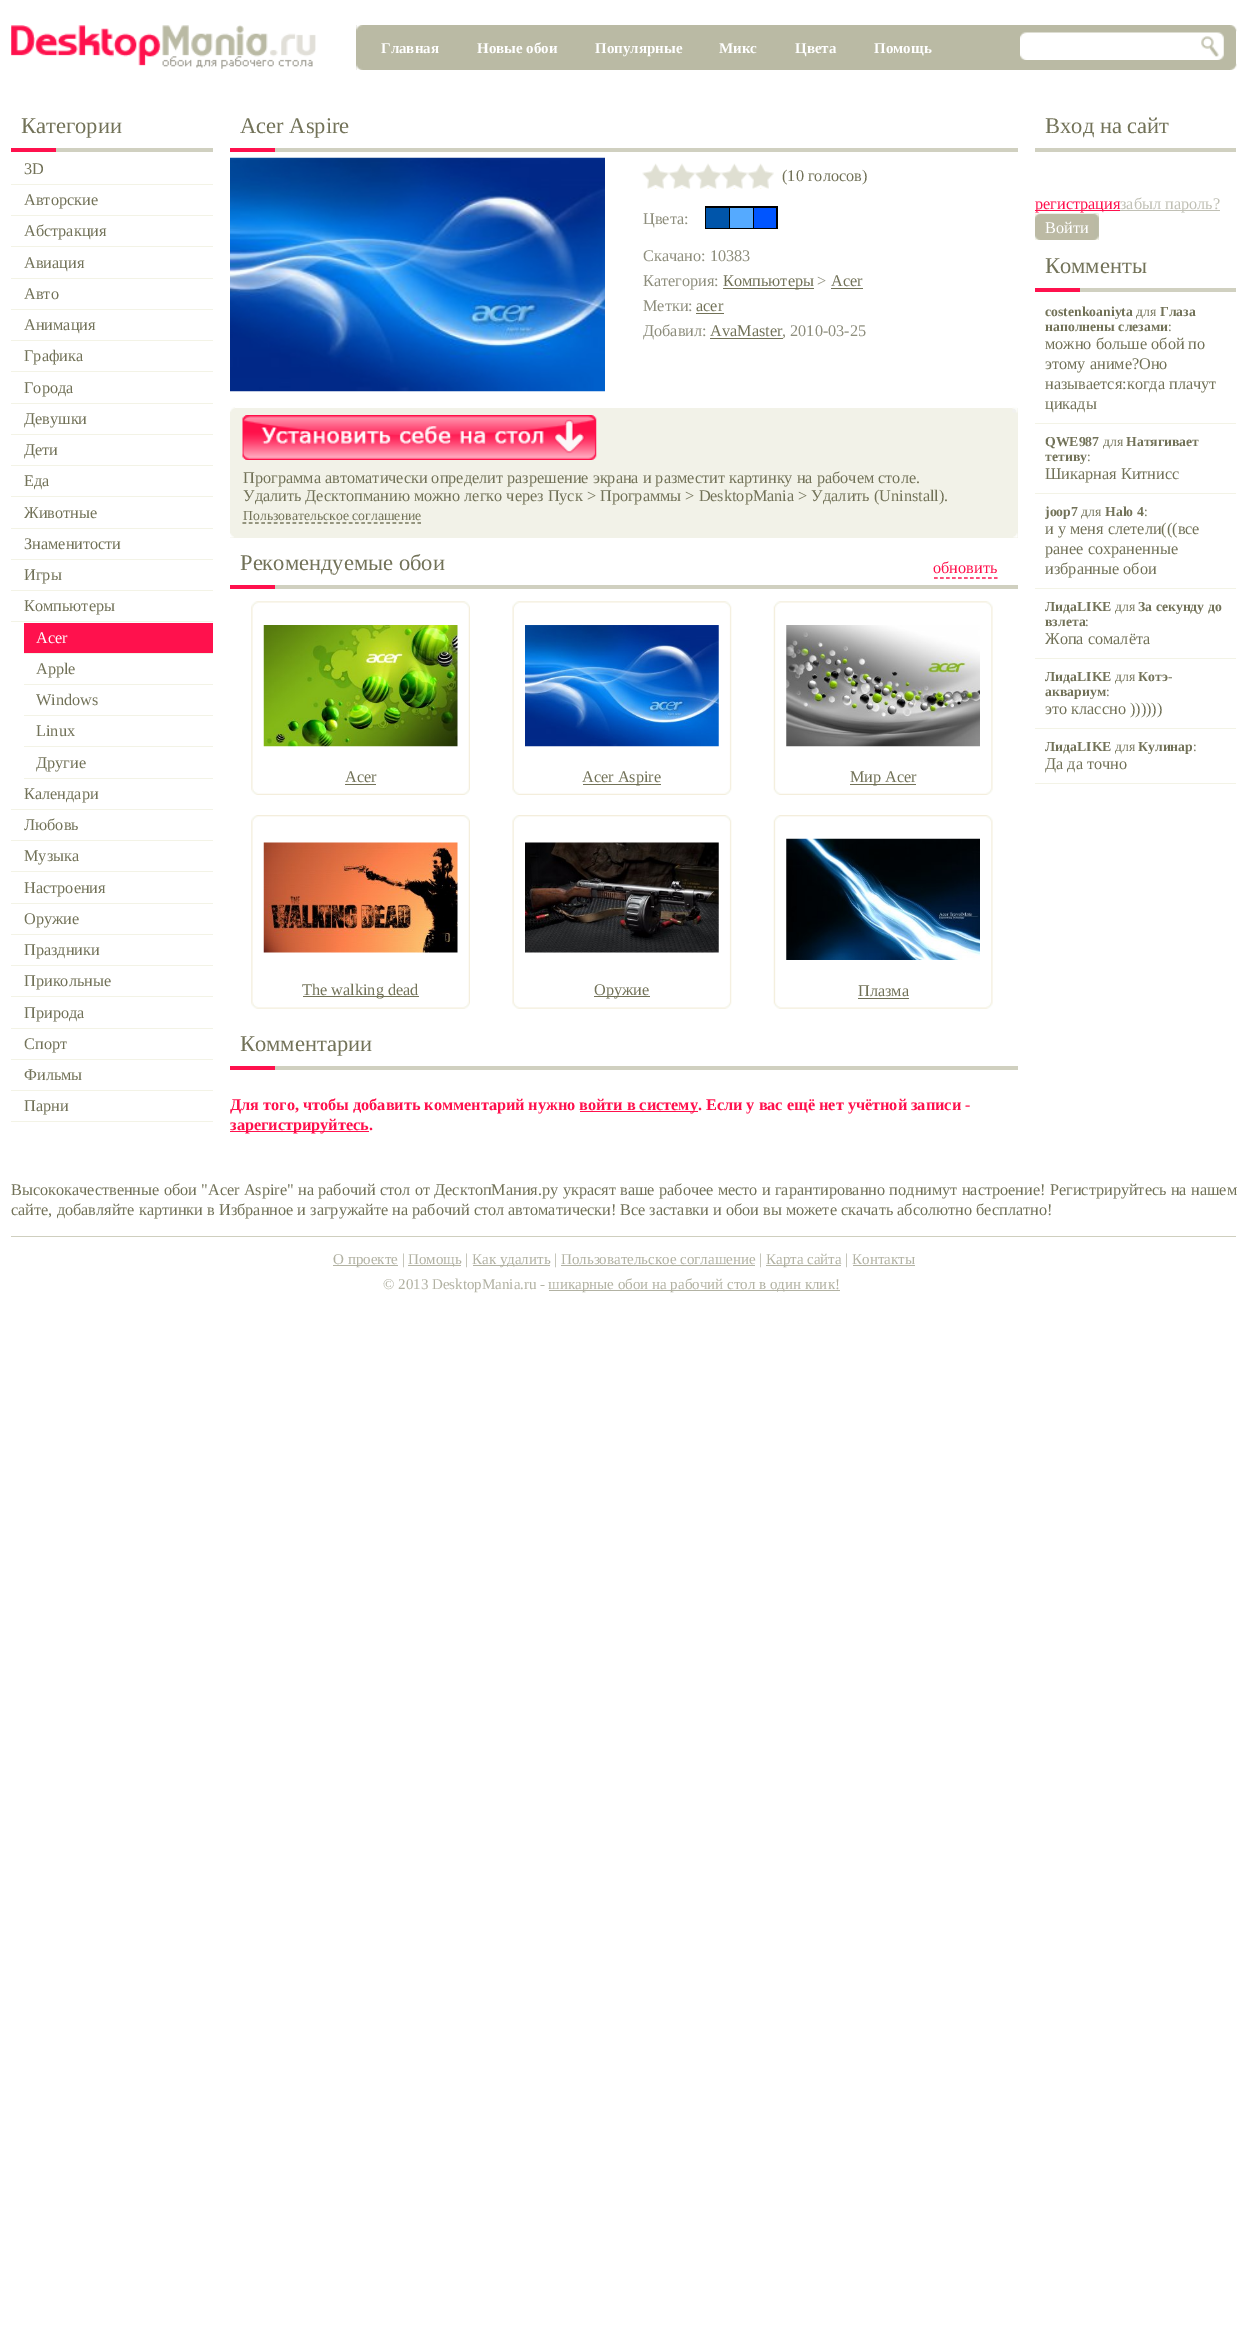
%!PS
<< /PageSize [1247 2337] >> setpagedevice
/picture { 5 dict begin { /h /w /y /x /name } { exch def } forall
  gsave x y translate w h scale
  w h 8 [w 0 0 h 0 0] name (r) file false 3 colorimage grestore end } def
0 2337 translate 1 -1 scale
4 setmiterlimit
1 setgray
0 0 1247 2337 rectfill
(img1.rgb) 11 25 305 44 picture
0.729 0.729 0.643 setrgbcolor
356 25 880 45 rectfill
(img2.rgb) 356 25 7 6 picture
(img3.rgb) 1230 25 7 7 picture
/LiberationSerif-Bold [15 0 0 -15 0 0] selectfont
1 setgray
381 53 moveto (Главная) show
477 53 moveto (Новые обои) show
595 53 moveto (Популярные) show
719 53 moveto (Микс) show
795 53 moveto (Цвета) show
874 53 moveto (Помощь) show
(img4.rgb) 1020 32 204 28 picture
1029 39 105 14 rectfill
(img5.rgb) 356 64 7 6 picture
(img6.rgb) 1230 63 7 7 picture
0.816 0.816 0.753 setrgbcolor
56 148 157 4 rectfill
/LiberationSerif-Regular [22.5 0 0 -22.5 0 0] selectfont
0.447 0.447 0.345 setrgbcolor
21 133 moveto (Категории) show
1 0.067 0.302 setrgbcolor
11 148 45 4 rectfill
0.953 0.953 0.902 setrgbcolor
11 184 202 1 rectfill
/LiberationSerif-Regular [16.25 0 0 -16.25 0 0] selectfont
0.447 0.447 0.345 setrgbcolor
24 174 moveto (3D) show
0.953 0.953 0.902 setrgbcolor
11 215 202 1 rectfill
0.447 0.447 0.345 setrgbcolor
24 205 moveto (Авторские) show
0.953 0.953 0.902 setrgbcolor
11 246 202 1 rectfill
0.447 0.447 0.345 setrgbcolor
24 236 moveto (Абстракция) show
0.953 0.953 0.902 setrgbcolor
11 278 202 1 rectfill
0.447 0.447 0.345 setrgbcolor
24 268 moveto (Авиация) show
0.953 0.953 0.902 setrgbcolor
11 309 202 1 rectfill
0.447 0.447 0.345 setrgbcolor
24 299 moveto (Авто) show
0.953 0.953 0.902 setrgbcolor
11 340 202 1 rectfill
0.447 0.447 0.345 setrgbcolor
24 330 moveto (Анимация) show
0.953 0.953 0.902 setrgbcolor
11 371 202 1 rectfill
0.447 0.447 0.345 setrgbcolor
24 361 moveto (Графика) show
0.953 0.953 0.902 setrgbcolor
11 403 202 1 rectfill
0.447 0.447 0.345 setrgbcolor
24 393 moveto (Города) show
0.953 0.953 0.902 setrgbcolor
11 434 202 1 rectfill
0.447 0.447 0.345 setrgbcolor
24 424 moveto (Девушки) show
0.953 0.953 0.902 setrgbcolor
11 465 202 1 rectfill
0.447 0.447 0.345 setrgbcolor
24 455 moveto (Дети) show
0.953 0.953 0.902 setrgbcolor
11 496 202 1 rectfill
0.447 0.447 0.345 setrgbcolor
24 486 moveto (Еда) show
0.953 0.953 0.902 setrgbcolor
11 528 202 1 rectfill
0.447 0.447 0.345 setrgbcolor
24 518 moveto (Животные) show
0.953 0.953 0.902 setrgbcolor
11 559 202 1 rectfill
0.447 0.447 0.345 setrgbcolor
24 549 moveto (Знаменитости) show
0.953 0.953 0.902 setrgbcolor
11 590 202 1 rectfill
0.447 0.447 0.345 setrgbcolor
24 580 moveto (Игры) show
0.953 0.953 0.902 setrgbcolor
11 621 202 1 rectfill
0.447 0.447 0.345 setrgbcolor
24 611 moveto (Компьютеры) show
1 0.067 0.302 setrgbcolor
24 623 189 30 rectfill
0.953 0.953 0.902 setrgbcolor
24 653 189 1 rectfill
1 setgray
36 643 moveto (Acer) show
0.953 0.953 0.902 setrgbcolor
24 684 189 1 rectfill
0.447 0.447 0.345 setrgbcolor
36 674 moveto (Apple) show
0.953 0.953 0.902 setrgbcolor
24 715 189 1 rectfill
0.447 0.447 0.345 setrgbcolor
36 705 moveto (Windows) show
0.953 0.953 0.902 setrgbcolor
24 746 189 1 rectfill
0.447 0.447 0.345 setrgbcolor
36 736 moveto (Linux) show
0.953 0.953 0.902 setrgbcolor
24 778 189 1 rectfill
0.447 0.447 0.345 setrgbcolor
36 768 moveto (Другие) show
0.953 0.953 0.902 setrgbcolor
11 809 202 1 rectfill
0.447 0.447 0.345 setrgbcolor
24 799 moveto (Календари) show
0.953 0.953 0.902 setrgbcolor
11 840 202 1 rectfill
0.447 0.447 0.345 setrgbcolor
24 830 moveto (Любовь) show
0.953 0.953 0.902 setrgbcolor
11 871 202 1 rectfill
0.447 0.447 0.345 setrgbcolor
24 861 moveto (Музыка) show
0.953 0.953 0.902 setrgbcolor
11 903 202 1 rectfill
0.447 0.447 0.345 setrgbcolor
24 893 moveto (Настроения) show
0.953 0.953 0.902 setrgbcolor
11 934 202 1 rectfill
0.447 0.447 0.345 setrgbcolor
24 924 moveto (Оружие) show
0.953 0.953 0.902 setrgbcolor
11 965 202 1 rectfill
0.447 0.447 0.345 setrgbcolor
24 955 moveto (Праздники) show
0.953 0.953 0.902 setrgbcolor
11 996 202 1 rectfill
0.447 0.447 0.345 setrgbcolor
24 986 moveto (Прикольные) show
0.953 0.953 0.902 setrgbcolor
11 1028 202 1 rectfill
0.447 0.447 0.345 setrgbcolor
24 1018 moveto (Природа) show
0.953 0.953 0.902 setrgbcolor
11 1059 202 1 rectfill
0.447 0.447 0.345 setrgbcolor
24 1049 moveto (Спорт) show
0.953 0.953 0.902 setrgbcolor
11 1090 202 1 rectfill
0.447 0.447 0.345 setrgbcolor
24 1080 moveto (Фильмы) show
0.953 0.953 0.902 setrgbcolor
11 1121 202 1 rectfill
0.447 0.447 0.345 setrgbcolor
24 1111 moveto (Парни) show
0.816 0.816 0.753 setrgbcolor
275 148 743 4 rectfill
/LiberationSerif-Regular [22.5 0 0 -22.5 0 0] selectfont
0.447 0.447 0.345 setrgbcolor
240 133 moveto (Acer Aspire) show
1 0.067 0.302 setrgbcolor
230 148 45 4 rectfill
(img7.rgb) 230 157 375 235 picture
(img8.rgb) 642 163 132 26 picture
/LiberationSerif-Regular [16.25 0 0 -16.25 0 0] selectfont
0.447 0.447 0.345 setrgbcolor
782 181 moveto (\(10 голосов\)) show
0.557 0.557 0.49 setrgbcolor
643 224 moveto (Цвета:) show
0 setgray
705 206 73 23 rectfill
0 0.333 0.667 setrgbcolor
706 208 23 20 rectfill
0.333 0.667 1 setrgbcolor
730 208 23 20 rectfill
0 0.333 1 setrgbcolor
754 208 22 20 rectfill
0.557 0.557 0.49 setrgbcolor
643 261 moveto (Скачано: 10383) show
643 286 moveto (Категория:) show
0.447 0.447 0.345 setrgbcolor
723 288 91 1 rectfill
723 286 moveto (Компьютеры) show
0.557 0.557 0.49 setrgbcolor
817 286 moveto (>) show
0.447 0.447 0.345 setrgbcolor
831 286 moveto (Acer) show
831 288 32 1 rectfill
0.557 0.557 0.49 setrgbcolor
643 311 moveto (Метки:) show
0.447 0.447 0.345 setrgbcolor
696 311 moveto (acer) show
696 313 28 1 rectfill
0.557 0.557 0.49 setrgbcolor
643 336 moveto (Добавил:) show
0.447 0.447 0.345 setrgbcolor
710 336 moveto (AvaMaster) show
710 338 73 1 rectfill
0.557 0.557 0.49 setrgbcolor
782 336 moveto (, 2010-03-25) show
0.949 0.949 0.91 setrgbcolor
230 408 788 130 rectfill
(img9.rgb) 230 407 5 5 picture
(img10.rgb) 1012 407 6 6 picture
(img11.rgb) 242 415 355 45 picture
0.447 0.447 0.345 setrgbcolor
243 483 moveto (Программа автоматически определит разрешение экрана и разместит картинку на рабочем столе.) show
243 501 moveto (Удалить Десктопманию можно легко через Пуск > Программы > DesktopMania > Удалить \(Uninstall\).) show
/LiberationSerif-Regular [13.75 0 0 -13.75 0 0] selectfont
243 520 moveto (Пользовательское соглашение) show
1.2 setlinewidth
[3.75 2.5] 0 setdash
newpath 242.5 523 moveto 421 523 lineto stroke
(img12.rgb) 230 533 4 5 picture
(img13.rgb) 1013 533 5 5 picture
0.816 0.816 0.753 setrgbcolor
275 585 743 4 rectfill
/LiberationSerif-Regular [22.5 0 0 -22.5 0 0] selectfont
0.447 0.447 0.345 setrgbcolor
240 570 moveto (Рекомендуемые обои) show
0.984 0.067 0.302 setrgbcolor
[3.75 2.25] 0 setdash
newpath 934 578 moveto 997.5 578 lineto stroke
/LiberationSerif-Regular [16.25 0 0 -16.25 0 0] selectfont
1 0.067 0.302 setrgbcolor
933 573 moveto (обновить) show
230 585 45 4 rectfill
(img14.rgb) 251 601 219 194 picture
(img15.rgb) 263 625 195 122 picture
0.447 0.447 0.345 setrgbcolor
345 782 moveto (Acer) show
345 784 31 1 rectfill
(img16.rgb) 512 601 220 194 picture
(img17.rgb) 525 625 194 122 picture
583 784 78 1 rectfill
582 782 moveto (Acer Aspire) show
(img18.rgb) 773 601 220 194 picture
(img19.rgb) 786 625 194 122 picture
850 784 66 1 rectfill
850 782 moveto (Мир Acer) show
(img20.rgb) 251 815 219 194 picture
(img21.rgb) 263 842 195 111 picture
303 996 116 1 rectfill
302 995 moveto (The walking dead) show
(img22.rgb) 512 815 220 194 picture
(img23.rgb) 525 842 194 111 picture
594 996 56 1 rectfill
594 995 moveto (Оружие) show
(img24.rgb) 773 815 220 194 picture
(img25.rgb) 786 838 194 122 picture
858 996 moveto (Плазма) show
858 998 51 1 rectfill
0.816 0.816 0.753 setrgbcolor
275 1066 743 4 rectfill
/LiberationSerif-Regular [22.5 0 0 -22.5 0 0] selectfont
0.447 0.447 0.345 setrgbcolor
240 1051 moveto (Комментарии) show
1 0.067 0.302 setrgbcolor
230 1066 45 4 rectfill
/LiberationSerif-Bold [16.25 0 0 -16.25 0 0] selectfont
230 1110 moveto (Для того, чтобы добавить комментарий нужно) show
580 1111 118 1 rectfill
579 1110 moveto (войти в систему. Если у вас ещё нет учётной записи -) show
230 1131 139 1 rectfill
230 1130 moveto (зарегистрируйтесь.) show
0.816 0.816 0.753 setrgbcolor
1035 148 201 4 rectfill
/LiberationSerif-Regular [22.5 0 0 -22.5 0 0] selectfont
0.447 0.447 0.345 setrgbcolor
1045 133 moveto (Вход на сайт) show
1 0.067 0.302 setrgbcolor
1035 210 85 1 rectfill
/LiberationSerif-Regular [16.25 0 0 -16.25 0 0] selectfont
1035 209 moveto (регистрация) show
0.753 0.753 0.71 setrgbcolor
1120 210 100 1 rectfill
1120 209 moveto (забыл пароль?) show
(img26.rgb) 1035 213 64 27 picture
(img27.rgb) 1093 213 6 27 picture
1 setgray
1045 233 moveto (Войти) show
0.816 0.816 0.753 setrgbcolor
1080 288 156 4 rectfill
/LiberationSerif-Regular [22.5 0 0 -22.5 0 0] selectfont
0.447 0.447 0.345 setrgbcolor
1045 273 moveto (Комменты) show
1 0.067 0.302 setrgbcolor
1035 288 45 4 rectfill
0.953 0.953 0.902 setrgbcolor
1035 423 201 1 rectfill
/LiberationSerif-Bold [13.75 0 0 -13.75 0 0] selectfont
0.447 0.447 0.345 setrgbcolor
1045 316 moveto (costenkoaniyta) show
/LiberationSerif-Regular [13.75 0 0 -13.75 0 0] selectfont
1136 316 moveto (для) show
/LiberationSerif-Bold [13.75 0 0 -13.75 0 0] selectfont
1160 316 moveto (Глаза) show
1045 331 moveto (наполнены слезами) show
/LiberationSerif-Regular [13.75 0 0 -13.75 0 0] selectfont
1168 331 moveto (:) show
/LiberationSerif-Regular [16.25 0 0 -16.25 0 0] selectfont
1045 349 moveto (можно больше обой по) show
1045 369 moveto (этому аниме?Оно) show
1045 389 moveto (называется:когда плачут) show
1045 409 moveto (цикады) show
0.953 0.953 0.902 setrgbcolor
1035 493 201 1 rectfill
/LiberationSerif-Bold [13.75 0 0 -13.75 0 0] selectfont
0.447 0.447 0.345 setrgbcolor
1045 446 moveto (QWE987) show
/LiberationSerif-Regular [13.75 0 0 -13.75 0 0] selectfont
1103 446 moveto (для) show
/LiberationSerif-Bold [13.75 0 0 -13.75 0 0] selectfont
1126 446 moveto (Натягивает) show
1045 461 moveto (тетиву) show
/LiberationSerif-Regular [13.75 0 0 -13.75 0 0] selectfont
1087 461 moveto (:) show
/LiberationSerif-Regular [16.25 0 0 -16.25 0 0] selectfont
1045 479 moveto (Шикарная Китнисс) show
0.953 0.953 0.902 setrgbcolor
1035 588 201 1 rectfill
/LiberationSerif-Bold [13.75 0 0 -13.75 0 0] selectfont
0.447 0.447 0.345 setrgbcolor
1045 516 moveto (joop7) show
/LiberationSerif-Regular [13.75 0 0 -13.75 0 0] selectfont
1081 516 moveto (для) show
/LiberationSerif-Bold [13.75 0 0 -13.75 0 0] selectfont
1105 516 moveto (Halo 4) show
/LiberationSerif-Regular [13.75 0 0 -13.75 0 0] selectfont
1144 516 moveto (:) show
/LiberationSerif-Regular [16.25 0 0 -16.25 0 0] selectfont
1045 534 moveto (и у меня слетели\(\(\(все) show
1045 554 moveto (ранее сохраненные) show
1045 574 moveto (избранные обои) show
0.953 0.953 0.902 setrgbcolor
1035 658 201 1 rectfill
/LiberationSerif-Bold [13.75 0 0 -13.75 0 0] selectfont
0.447 0.447 0.345 setrgbcolor
1045 611 moveto (ЛидаLIKE) show
/LiberationSerif-Regular [13.75 0 0 -13.75 0 0] selectfont
1115 611 moveto (для) show
/LiberationSerif-Bold [13.75 0 0 -13.75 0 0] selectfont
1138 611 moveto (За секунду до) show
1045 626 moveto (взлета) show
/LiberationSerif-Regular [13.75 0 0 -13.75 0 0] selectfont
1085 626 moveto (:) show
/LiberationSerif-Regular [16.25 0 0 -16.25 0 0] selectfont
1045 644 moveto (Жопа сомалёта) show
0.953 0.953 0.902 setrgbcolor
1035 728 201 1 rectfill
/LiberationSerif-Bold [13.75 0 0 -13.75 0 0] selectfont
0.447 0.447 0.345 setrgbcolor
1045 681 moveto (ЛидаLIKE) show
/LiberationSerif-Regular [13.75 0 0 -13.75 0 0] selectfont
1115 681 moveto (для) show
/LiberationSerif-Bold [13.75 0 0 -13.75 0 0] selectfont
1138 681 moveto (Котэ-) show
1045 696 moveto (аквариум) show
/LiberationSerif-Regular [13.75 0 0 -13.75 0 0] selectfont
1106 696 moveto (:) show
/LiberationSerif-Regular [16.25 0 0 -16.25 0 0] selectfont
1045 714 moveto (это классно \)\)\)\)\)\)) show
0.953 0.953 0.902 setrgbcolor
1035 783 201 1 rectfill
/LiberationSerif-Bold [13.75 0 0 -13.75 0 0] selectfont
0.447 0.447 0.345 setrgbcolor
1045 751 moveto (ЛидаLIKE) show
/LiberationSerif-Regular [13.75 0 0 -13.75 0 0] selectfont
1115 751 moveto (для) show
/LiberationSerif-Bold [13.75 0 0 -13.75 0 0] selectfont
1138 751 moveto (Кулинар) show
/LiberationSerif-Regular [13.75 0 0 -13.75 0 0] selectfont
1193 751 moveto (:) show
/LiberationSerif-Regular [16.25 0 0 -16.25 0 0] selectfont
1045 769 moveto (Да да точно) show
11 1195 moveto 0.25 0 32 (Высококачественные обои "Acer Aspire" на рабочий стол от ДесктопМания.ру украсят ваше рабочее место и гарантированно поднимут настроение! Регистрируйтесь на нашем) widthshow
11 1215 moveto (сайте, добавляйте картинки в Избранное и загружайте на рабочий стол автоматически! Все заставки и обои вы можете скачать абсолютно бесплатно!) show
0.812 0.812 0.749 setrgbcolor
11 1236 1225 1 rectfill
0.698 0.698 0.639 setrgbcolor
333 1265 65 1 rectfill
/LiberationSerif-Regular [15 0 0 -15 0 0] selectfont
333 1264 moveto (О проекте |) show
408 1265 53 1 rectfill
408 1264 moveto (Помощь |) show
473 1265 77 1 rectfill
472 1264 moveto (Как удалить | Пользовательское соглашение |) show
766 1265 75 1 rectfill
766 1264 moveto (Карта сайта | Контакты) show
561 1265 194 1 rectfill
853 1265 62 1 rectfill
383 1289 moveto (© 2013 DesktopMania.ru -) show
549 1290 291 1 rectfill
548 1289 moveto (шикарные обои на рабочий стол в один клик!) show
showpage
